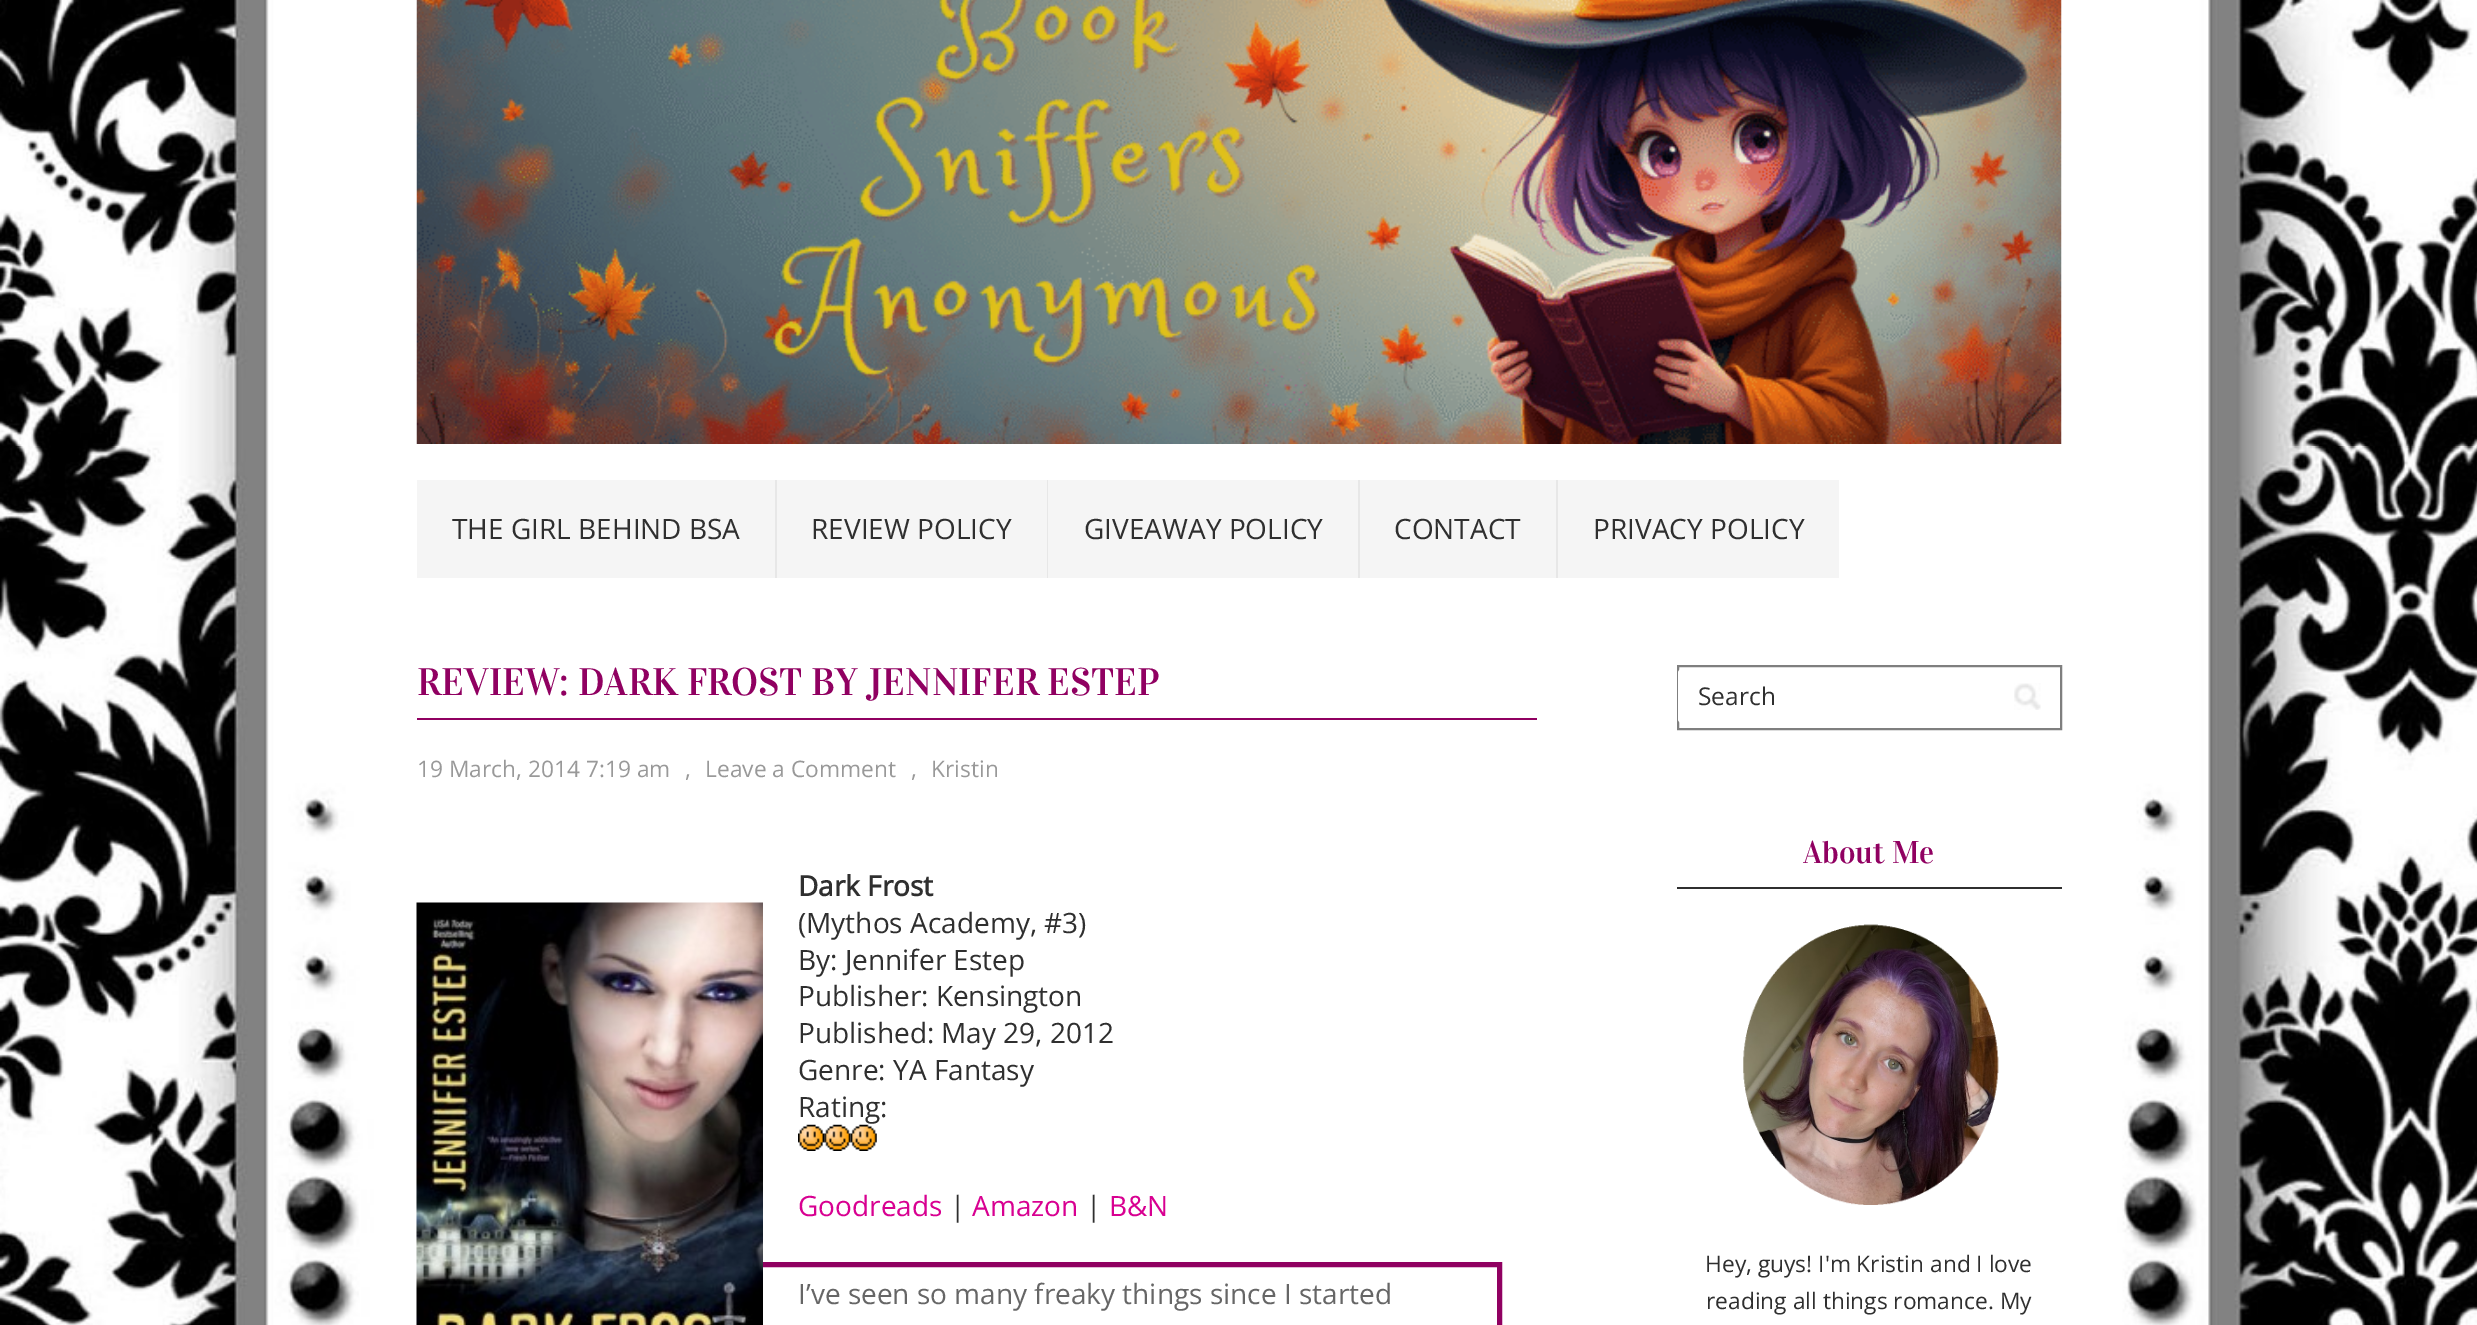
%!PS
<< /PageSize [2477 1325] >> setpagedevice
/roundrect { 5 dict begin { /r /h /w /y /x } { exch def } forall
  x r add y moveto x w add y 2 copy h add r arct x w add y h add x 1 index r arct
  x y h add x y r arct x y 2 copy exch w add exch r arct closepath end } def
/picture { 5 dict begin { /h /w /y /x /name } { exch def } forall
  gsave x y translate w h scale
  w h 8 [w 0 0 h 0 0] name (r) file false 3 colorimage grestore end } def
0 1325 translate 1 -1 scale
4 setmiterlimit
1 setgray
0 0 2477 1325 rectfill
(img1.rgb) 0 0 2477 1325 picture
(img2.rgb) 416 0 1646 444 picture
0.961 setgray
417 480 358 98 rectfill
0.906 setgray
775 480 2 98 rectfill
/OpenSans-Regular [28 0 0 -28 0 0] selectfont
0.184 setgray
452 539 moveto (THE GIRL BEHIND BSA) show
0.961 setgray
777 480 270 98 rectfill
0.906 setgray
1047 480 1 98 rectfill
0.184 setgray
811 539 moveto (REVIEW POLICY) show
0.961 setgray
1048 480 310 98 rectfill
0.906 setgray
1358 480 2 98 rectfill
0.184 setgray
1084 539 moveto (GIVEAWAY POLICY) show
0.961 setgray
1360 480 196 98 rectfill
0.906 setgray
1556 480 2 98 rectfill
0.184 setgray
1394 539 moveto (CONTACT) show
0.961 setgray
1558 480 281 98 rectfill
0.184 setgray
1593 539 moveto (PRIVACY POLICY) show
0.565 0 0.38 setrgbcolor
417 718 1120 2 rectfill
/Vidaloka-Regular [38.5 0 0 -38.5 0 0] selectfont
417 695 moveto (REVIEW: DARK FROST BY JENNIFER ESTEP) show
/OpenSans-Regular [22.75 0 0 -22.75 0 0] selectfont
0.6 setgray
417 777 moveto (19 March, 2014 7:19 am) show
685 777 moveto (,) show
705 777 moveto (Leave a Comment) show
911 777 moveto (,) show
931 777 moveto (Kristin) show
/OpenSans-Bold [28 0 0 -28 0 0] selectfont
0.184 setgray
798 896 moveto (Dark Frost) show
0.565 0 0.38 setrgbcolor
5 setlinewidth
454.5 1264.5 1045 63 rectstroke
(img3.rgb) 416 902 347 423 picture
/OpenSans-Regular [28 0 0 -28 0 0] selectfont
0.184 setgray
798 933 moveto (\(Mythos Academy, #3\)) show
798 970 moveto (By: Jennifer Estep) show
798 1006 moveto (Publisher: Kensington) show
798 1043 moveto (Published: May 29, 2012) show
798 1080 moveto (Genre: YA Fantasy) show
798 1117 moveto (Rating:) show
(img4.rgb) 798 1124 27 27 picture
(img5.rgb) 824 1124 27 27 picture
(img6.rgb) 850 1124 27 27 picture
0.847 0 0.569 setrgbcolor
798 1216 moveto (Goodreads) show
0.184 setgray
950 1216 moveto (|) show
0.847 0 0.569 setrgbcolor
972 1216 moveto (Amazon) show
0.184 setgray
1086 1216 moveto (|) show
0.847 0 0.569 setrgbcolor
1109 1216 moveto (B&N) show
0.4 setgray
798 1304 moveto (I’ve seen so many freaky things since I started) show
0.498 setgray
2 setlinewidth
1678 666 383 63 rectstroke
1 setgray
1678 669 321 54 4 roundrect fill
/OpenSans-Regular [24.5 0 0 -24.5 0 0] selectfont
0.184 setgray
1698 705 moveto (Search) show
(img7.rgb) 2014 683 27 27 picture
1677 887 385 2 rectfill
/Vidaloka-Regular [31.5 0 0 -31.5 0 0] selectfont
0.565 0 0.38 setrgbcolor
1803 863 moveto (About Me) show
(img8.rgb) 1743 924 256 281 picture
/OpenSans-Regular [22.75 0 0 -22.75 0 0] selectfont
0.184 setgray
1705 1272 moveto (Hey, guys! I'm Kristin and I love) show
1706 1309 moveto (reading all things romance. My) show
showpage
